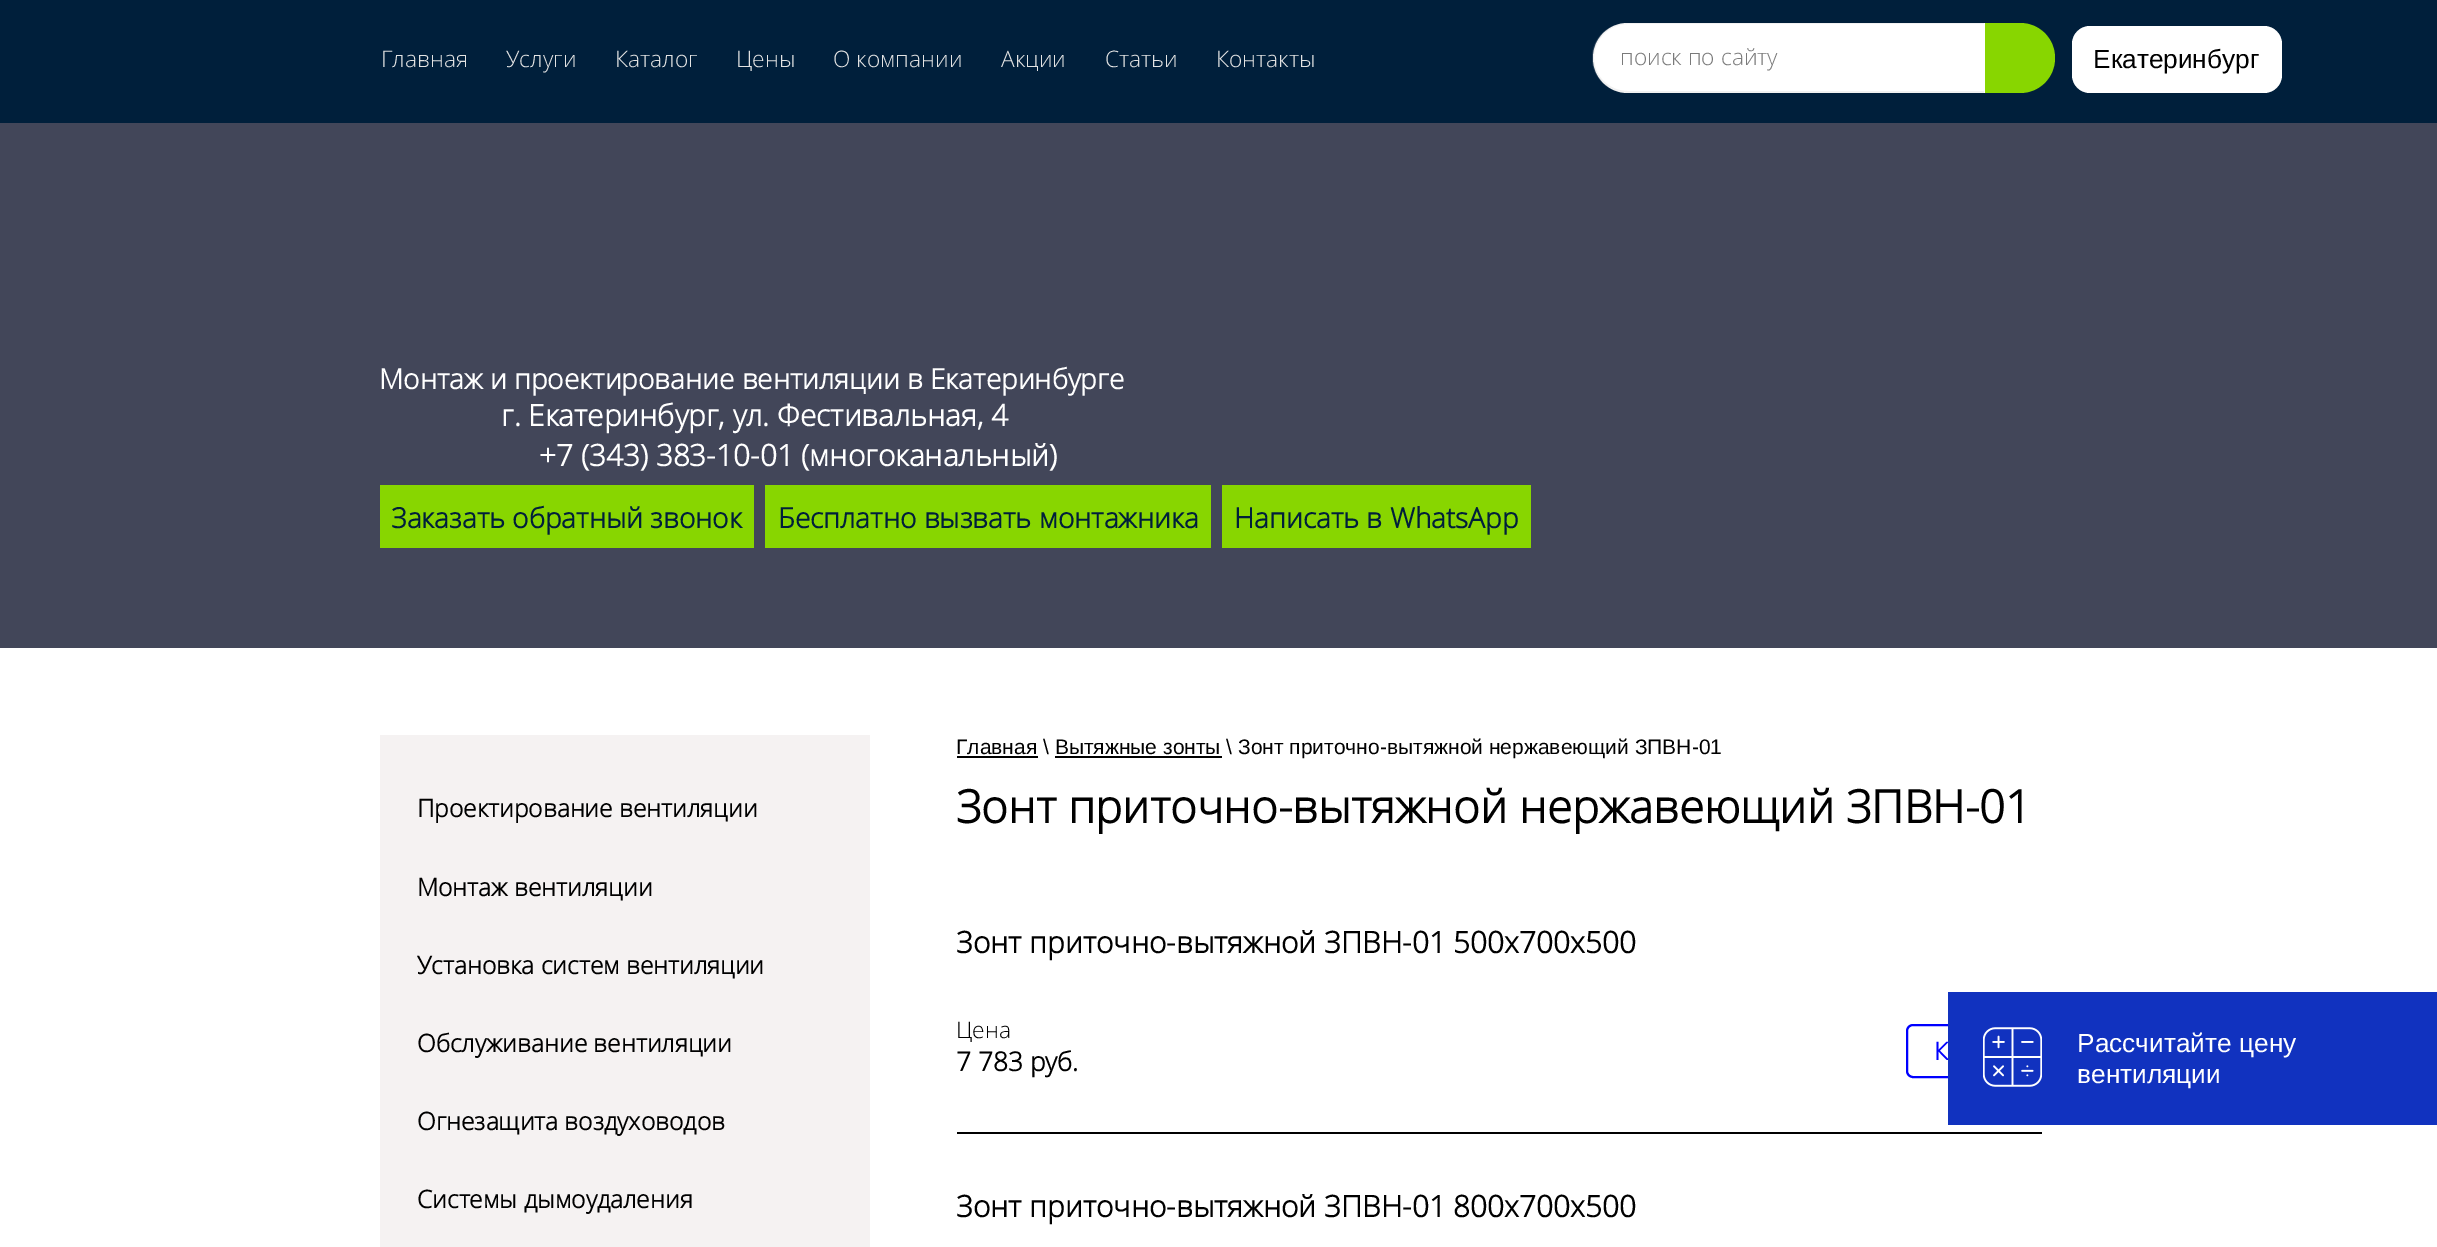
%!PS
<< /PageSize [2437 1247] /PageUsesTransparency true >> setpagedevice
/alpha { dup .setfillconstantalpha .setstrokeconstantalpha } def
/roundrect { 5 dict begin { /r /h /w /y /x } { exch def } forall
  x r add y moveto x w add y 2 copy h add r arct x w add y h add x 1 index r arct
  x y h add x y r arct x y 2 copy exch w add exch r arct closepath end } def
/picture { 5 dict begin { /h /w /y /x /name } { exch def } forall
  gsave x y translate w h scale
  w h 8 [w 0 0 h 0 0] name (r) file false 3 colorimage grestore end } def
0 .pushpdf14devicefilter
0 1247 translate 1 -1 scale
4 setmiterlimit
1 setgray
0 0 2437 1247 rectfill
0 0.122 0.231 setrgbcolor
0 0 2437 123 rectfill
/OpenSans-Light [22.75 0 0 -22.75 0 0] selectfont
0.89 setgray
381 67 moveto (Главная) show
506 67 moveto (Услуги) show
615 67 moveto (Каталог) show
736 67 moveto (Цены) show
833 67 moveto (О компании) show
1001 67 moveto (Акции) show
1105 67 moveto (Статьи) show
1216 67 moveto (Контакты) show
1 setgray
newpath 1628 23 moveto 1985 23 lineto 1985 93 lineto 1628 93 lineto 1608.5 93 1593 77.5 1593 58 curveto 1593 38.5 1608.5 23 1628 23 curveto closepath fill
0.2 alpha
0.733 setgray
newpath 1628 23 moveto 1984 23 lineto 1984 93 lineto 1628 93 lineto 1608 93 1592 77 1592 58 curveto 1592 38 1608 23 1628 23 curveto closepath 1628 24 moveto 1984 24 lineto 1984 91 lineto 1628 91 lineto 1609 91 1594 76 1594 58 curveto 1594 39 1609 24 1628 24 curveto closepath eofill
1 alpha
0.478 setgray
1620 65 moveto (поиск по сайту) show
0.533 0.839 0 setrgbcolor
newpath 1985 23 moveto 2020 23 lineto 2039.5 23 2055 38.5 2055 58 curveto 2055 77.5 2039.5 93 2020 93 curveto 1985 93 lineto closepath fill
1 setgray
2072 26 210 67 18 roundrect fill
/LiberationSans-Regular [26.25 0 0 -26.25 0 0] selectfont
0 setgray
2093 68 moveto (Екатеринбуpг) show
0.259 0.275 0.349 setrgbcolor
0 123 2437 525 rectfill
/OpenSans-Bold [28 0 0 -28 0 0] selectfont
1 setgray
379 389 moveto (Монтаж и проектирование вентиляции в Екатеринбурге) show
/OpenSans-Bold [29.75 0 0 -29.75 0 0] selectfont
501 426 moveto (г. Екатеринбург, ул. Фестивальная, 4) show
539 466 moveto (+7 \(343\) 383-10-01 \(многоканальный\)) show
0.533 0.839 0 setrgbcolor
380 485 374 63 rectfill
/OpenSans-Bold [28 0 0 -28 0 0] selectfont
0 0.122 0.231 setrgbcolor
391 528 moveto (Заказать обратный звонок) show
0.533 0.839 0 setrgbcolor
765 485 446 63 rectfill
0 0.122 0.231 setrgbcolor
778 528 moveto (Бесплатно вызвать монтажника) show
0.533 0.839 0 setrgbcolor
1222 485 309 63 rectfill
0 0.122 0.231 setrgbcolor
1234 528 moveto (Написать в WhatsApp) show
0.961 0.949 0.949 setrgbcolor
380 735 490 512 rectfill
/OpenSans-Bold [24.5 0 0 -24.5 0 0] selectfont
0 setgray
417 817 moveto (Проектирование вентиляции) show
417 896 moveto (Монтаж вентиляции) show
417 974 moveto (Установка систем вентиляции) show
417 1052 moveto (Обслуживание вентиляции) show
417 1130 moveto (Огнезащита воздуховодов) show
417 1208 moveto (Системы дымоудаления) show
957 756 81 2 rectfill
/LiberationSans-Regular [21 0 0 -21 0 0] selectfont
956 754 moveto (Главная \\ Вытяжные зонты \\ Зонт приточно-вытяжной нержавеющий ЗПВН-01) show
1055 756 167 2 rectfill
/OpenSans-Bold [45.5 0 0 -45.5 0 0] selectfont
956 823 moveto (Зонт приточно-вытяжной нержавеющий ЗПВН-01) show
957 1132 1085 2 rectfill
/OpenSans-Bold [29.75 0 0 -29.75 0 0] selectfont
956 953 moveto (Зонт приточно-вытяжной ЗПВН-01 500x700x500) show
/OpenSans-Light [22.75 0 0 -22.75 0 0] selectfont
956 1038 moveto (Цена) show
/OpenSans-Bold [26.25 0 0 -26.25 0 0] selectfont
956 1071 moveto (7 783 руб.) show
0 0 1 setrgbcolor
2 setlinewidth
1907 1025 134 52 6 roundrect stroke
/OpenSans-Bold [24.5 0 0 -24.5 0 0] selectfont
1934 1060 moveto (К) show
/OpenSans-Bold [29.75 0 0 -29.75 0 0] selectfont
0 setgray
956 1217 moveto (Зонт приточно-вытяжной ЗПВН-01 800x700x500) show
0.067 0.196 0.749 setrgbcolor
1948 992 489 133 rectfill
(img1.rgb) 1983 1027 59 60 picture
/LiberationSans-Regular [26.25 0 0 -26.25 0 0] selectfont
1 setgray
2077 1052 moveto (Рассчитайте цену) show
2077 1083 moveto (вентиляции) show
.poppdf14devicefilter showpage
